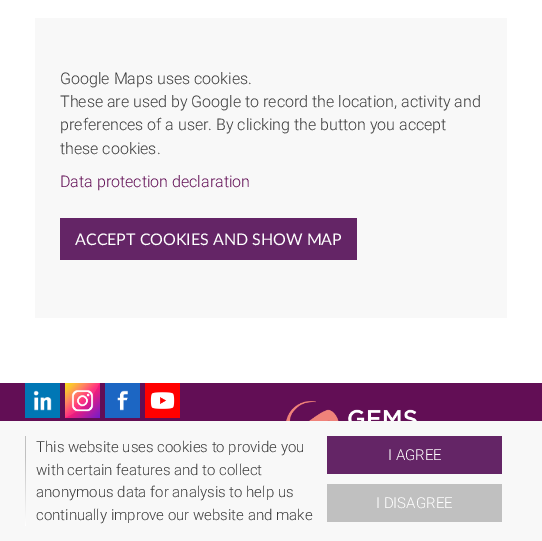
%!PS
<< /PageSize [542 541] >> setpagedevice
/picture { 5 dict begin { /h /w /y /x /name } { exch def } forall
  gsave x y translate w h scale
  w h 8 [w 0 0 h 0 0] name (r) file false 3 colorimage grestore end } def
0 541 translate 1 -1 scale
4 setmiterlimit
1 setgray
0 0 542 541 rectfill
0.973 setgray
35 18 472 300 rectfill
/Roboto-Light [16 0 0 -16 0 0] selectfont
0.231 setgray
60 84 moveto (Google Maps uses cookies.) show
60 107 moveto (These are used by Google to record the location, activity and) show
60 130 moveto (preferences of a user. By clicking the button you accept) show
60 154 moveto (these cookies.) show
0.384 0.055 0.333 setrgbcolor
60 187 moveto (Data protection declaration) show
0.392 0.145 0.4 setrgbcolor
60 218 297 42 rectfill
/Lato-Regular [16 0 0 -16 0 0] selectfont
1 setgray
75 245 moveto (ACCEPT COOKIES AND SHOW MAP) show
0.384 0.055 0.333 setrgbcolor
0 383 542 38 rectfill
(img1.rgb) 25 383 35 35 picture
(img2.rgb) 65 383 35 35 picture
(img3.rgb) 105 383 35 35 picture
(img4.rgb) 145 383 35 35 picture
(img5.rgb) 286 401 131 20 picture
0.973 setgray
0 421 542 120 rectfill
gsave newpath 25 436 moveto 26 436 lineto 26 526 lineto 25 526 lineto closepath clip newpath
<< /ShadingType 2 /ColorSpace /DeviceRGB /Coords [25 436 26 526] /Extend [true true] /Function << /FunctionType 3 /Domain [0 1] /Functions [<< /FunctionType 2 /Domain [0 1] /C0 [0.753 0.753 0.753] /C1 [0.753 0.753 0.753] /N 1 >> << /FunctionType 2 /Domain [0 1] /C0 [0.753 0.753 0.753] /C1 [1 1 1] /N 1 >>] /Bounds [0.23] /Encode [0 1 0 1] >> >> shfill grestore
/Roboto-Light [15 0 0 -15 0 0] selectfont
0.231 setgray
36 452 moveto (This website uses cookies to provide you) show
36 475 moveto (with certain features and to collect) show
36 497 moveto (anonymous data for analysis to help us) show
36 520 moveto (continually improve our website and make) show
0.392 0.145 0.4 setrgbcolor
327 436 175 38 rectfill
1 setgray
388 460 moveto (I AGREE) show
0.753 setgray
327 484 175 38 rectfill
1 setgray
376 508 moveto (I DISAGREE) show
showpage
